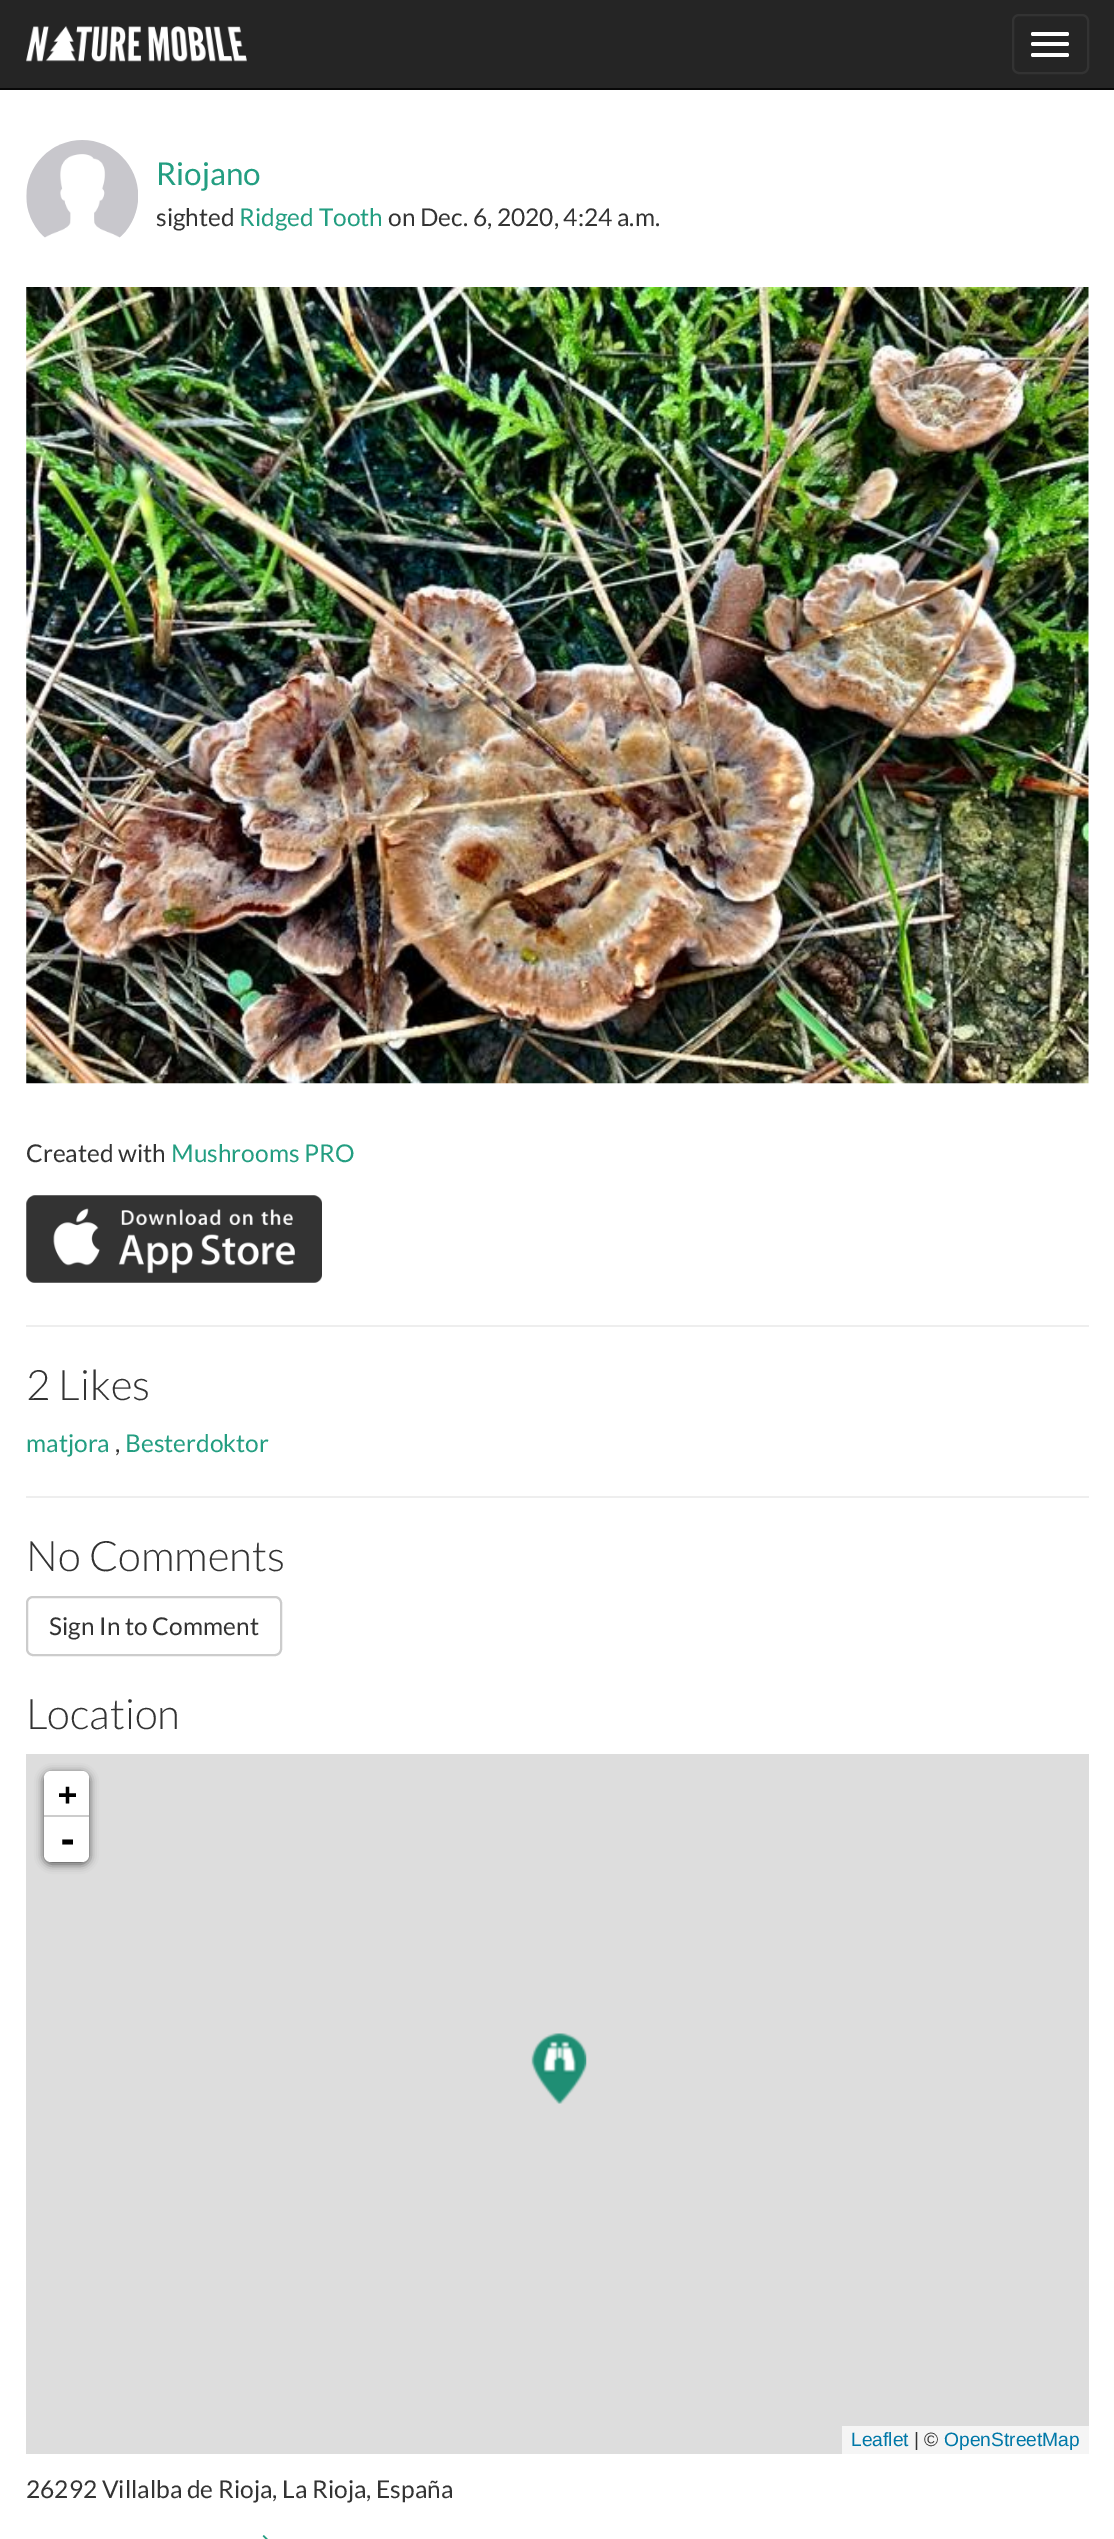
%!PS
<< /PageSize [1114 2539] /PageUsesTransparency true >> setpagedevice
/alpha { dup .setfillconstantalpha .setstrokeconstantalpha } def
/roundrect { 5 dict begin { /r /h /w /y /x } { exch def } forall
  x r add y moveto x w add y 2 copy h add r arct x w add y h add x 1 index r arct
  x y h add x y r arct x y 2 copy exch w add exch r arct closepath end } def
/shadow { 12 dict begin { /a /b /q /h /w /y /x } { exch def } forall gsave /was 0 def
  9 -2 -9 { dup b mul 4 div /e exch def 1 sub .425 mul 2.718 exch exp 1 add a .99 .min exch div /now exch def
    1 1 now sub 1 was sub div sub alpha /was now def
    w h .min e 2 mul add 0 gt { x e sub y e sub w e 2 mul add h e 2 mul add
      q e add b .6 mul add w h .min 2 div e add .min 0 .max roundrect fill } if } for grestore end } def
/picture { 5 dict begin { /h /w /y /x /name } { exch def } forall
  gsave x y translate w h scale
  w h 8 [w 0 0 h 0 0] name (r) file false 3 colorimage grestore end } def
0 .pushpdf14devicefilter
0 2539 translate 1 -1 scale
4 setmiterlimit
1 setgray
0 0 1114 2539 rectfill
0.145 setgray
0 0 1114 88 rectfill
0.031 setgray
0 88 1114 2 rectfill
(img1.rgb) 26 26 221 36 picture
0.2 setgray
2 setlinewidth
1013 15 75 58 6 roundrect stroke
1 setgray
1031 32 38 4 2 roundrect fill
1031 42 38 4 2 roundrect fill
1031 53 38 4 2 roundrect fill
(img2.rgb) 26 140 112 98 picture
/Lato-Regular [31.5 0 0 -31.5 0 0] selectfont
0.137 0.62 0.506 setrgbcolor
156 185 moveto (Riojano) show
/Lato-Regular [24.5 0 0 -24.5 0 0] selectfont
0.2 setgray
156 226 moveto (sighted) show
0.137 0.62 0.506 setrgbcolor
239 226 moveto (Ridged Tooth) show
0.2 setgray
388 226 moveto (on Dec. 6, 2020, 4:24 a.m.) show
(img3.rgb) 26 287 1063 797 picture
26 1162 moveto (Created with) show
0.137 0.62 0.506 setrgbcolor
171 1162 moveto (Mushrooms PRO) show
(img4.rgb) 26 1195 296 88 picture
0.933 setgray
26 1325 1063 2 rectfill
/Lato-Light [42 0 0 -42 0 0] selectfont
0.2 setgray
26 1400 moveto (2 Likes) show
/Lato-Regular [24.5 0 0 -24.5 0 0] selectfont
0.137 0.62 0.506 setrgbcolor
26 1452 moveto (matjora) show
0.2 setgray
115 1452 moveto (,) show
0.137 0.62 0.506 setrgbcolor
125 1452 moveto (Besterdoktor) show
0.933 setgray
26 1496 1063 2 rectfill
/Lato-Light [42 0 0 -42 0 0] selectfont
0.2 setgray
26 1571 moveto (No Comments) show
0.8 setgray
27 1597 254 58 6 roundrect stroke
/Lato-Regular [24.5 0 0 -24.5 0 0] selectfont
0.2 setgray
49 1635 moveto (Sign In to Comment) show
/Lato-Light [42 0 0 -42 0 0] selectfont
26 1729 moveto (Location) show
0.867 setgray
26 1754 1063 700 rectfill
0 setgray
44 1773 45 91 7 4.5 0.65 shadow
1 setgray
newpath 51 1771 moveto 82 1771 lineto 86 1771 89 1774 89 1778 curveto 89 1817 lineto 44 1817 lineto 44 1778 lineto 44 1774 47 1771 51 1771 curveto closepath fill
0.8 setgray
44 1815 45 2 rectfill
/DejaVuSansMono-Bold [31.5 0 0 -31.5 0 0] selectfont
0 setgray
58 1805 moveto (+) show
1 setgray
newpath 44 1817 moveto 89 1817 lineto 89 1855 lineto 89 1859 86 1862 82 1862 curveto 51 1862 lineto 47 1862 44 1859 44 1855 curveto closepath fill
/DejaVuSansMono-Bold [35 0 0 -35 0 0] selectfont
0 setgray
57 1852 moveto (-) show
0.961 setgray
842 2426 247 28 rectfill
/LiberationSans-Regular [19.25 0 0 -19.25 0 0] selectfont
0 0.471 0.659 setrgbcolor
851 2446 moveto (Leaflet) show
0.2 setgray
914 2446 moveto (| ©) show
0 0.471 0.659 setrgbcolor
944 2446 moveto (OpenStreetMap) show
(img5.rgb) 531 2033 56 71 picture
/Lato-Regular [24.5 0 0 -24.5 0 0] selectfont
0.2 setgray
26 2498 moveto (26292 Villalba de Rioja, La Rioja, España) show
(img6.rgb) 262 2535 6 4 picture
.poppdf14devicefilter showpage
